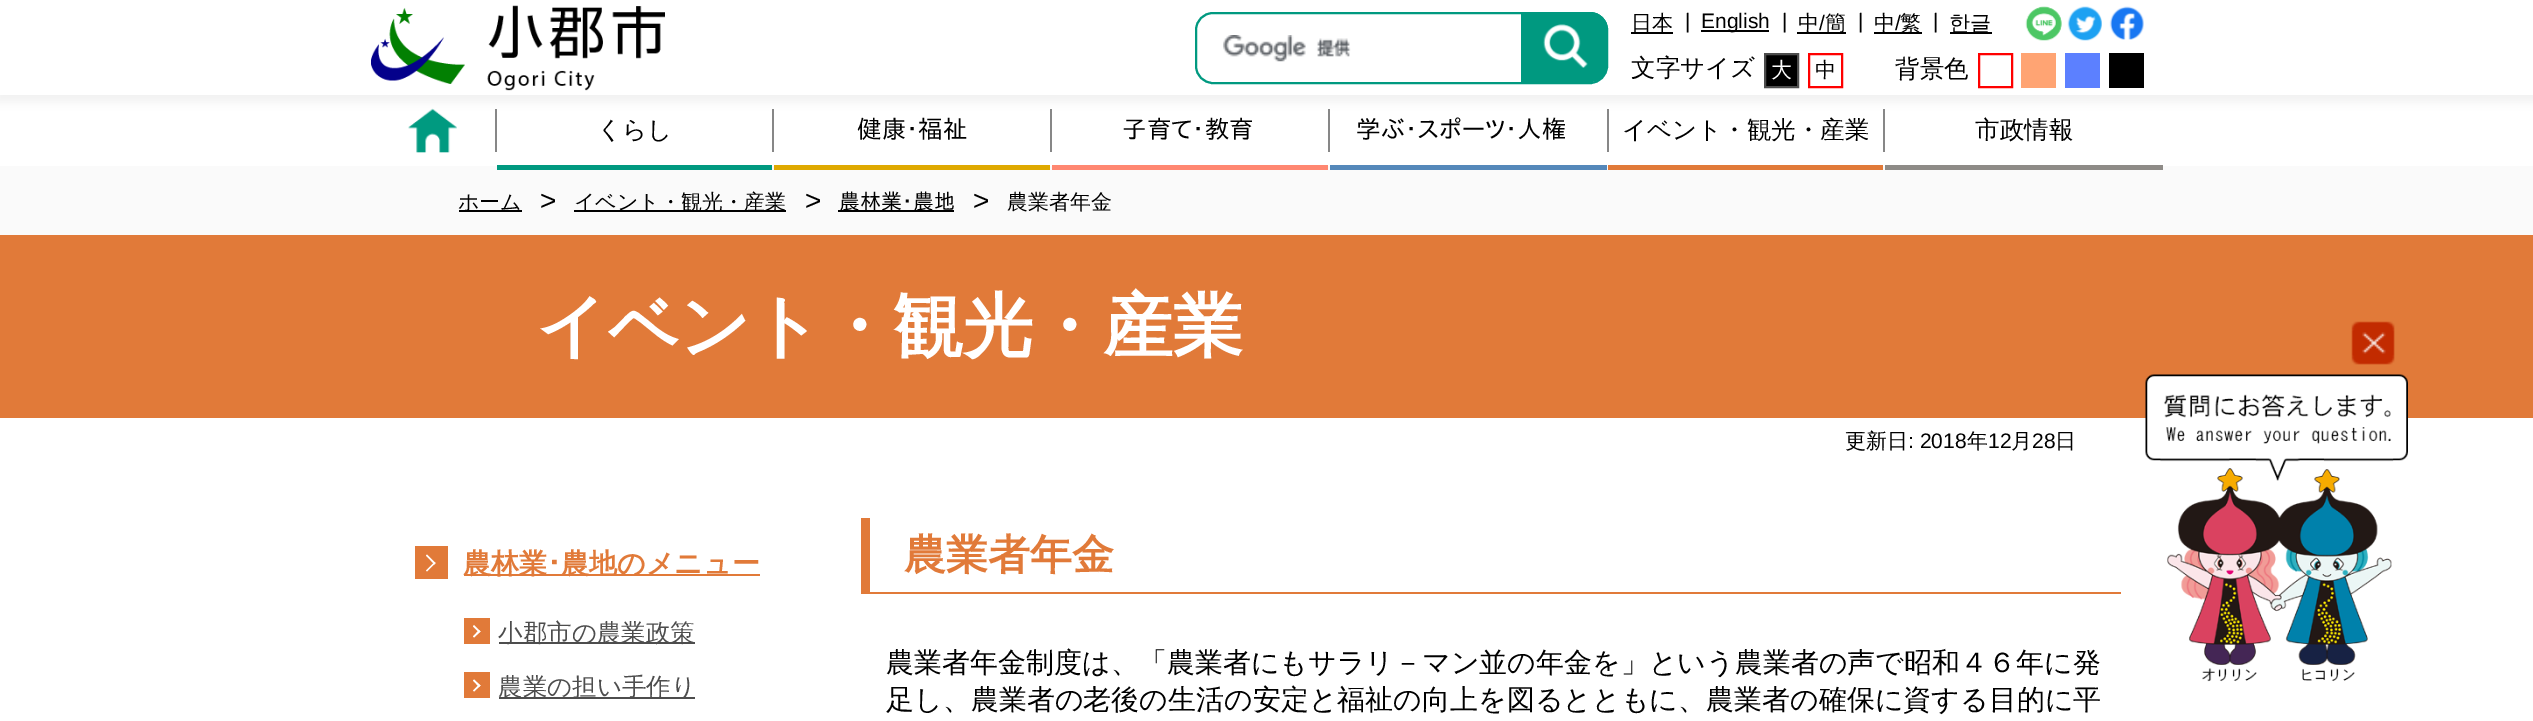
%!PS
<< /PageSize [2533 721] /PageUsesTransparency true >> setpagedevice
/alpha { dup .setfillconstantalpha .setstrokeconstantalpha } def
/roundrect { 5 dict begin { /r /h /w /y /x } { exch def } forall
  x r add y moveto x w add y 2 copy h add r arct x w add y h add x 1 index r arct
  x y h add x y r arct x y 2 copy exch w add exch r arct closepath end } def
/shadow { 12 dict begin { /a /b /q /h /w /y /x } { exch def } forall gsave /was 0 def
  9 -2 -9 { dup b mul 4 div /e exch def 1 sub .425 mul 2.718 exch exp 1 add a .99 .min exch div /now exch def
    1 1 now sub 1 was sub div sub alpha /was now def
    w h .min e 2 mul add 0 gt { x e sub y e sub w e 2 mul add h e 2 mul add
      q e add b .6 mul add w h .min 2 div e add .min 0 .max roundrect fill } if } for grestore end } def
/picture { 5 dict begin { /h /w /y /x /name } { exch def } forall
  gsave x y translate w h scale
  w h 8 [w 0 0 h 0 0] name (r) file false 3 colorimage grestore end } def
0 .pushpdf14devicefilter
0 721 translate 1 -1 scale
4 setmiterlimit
1 setgray
0 0 2533 721 rectfill
gsave
newpath 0 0 moveto 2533 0 lineto 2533 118 lineto 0 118 lineto closepath 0 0 moveto 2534 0 lineto 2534 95 lineto 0 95 lineto closepath eoclip newpath
0 setgray
-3 0 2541 102 0 5 0.05 shadow
grestore
(img1.rgb) 371 5 294 86 picture
(img2.rgb) 1223 35 128 27 picture
0 0.6 0.502 setrgbcolor
2 setlinewidth
1196 13 411 70 17 roundrect stroke
newpath 1521 12 moveto 1590 12 lineto 1600 12 1608 20 1608 30 curveto 1608 64 lineto 1608 74 1600 82 1590 82 curveto 1521 82 lineto closepath fill
(img3.rgb) 1543 24 45 44 picture
0 setgray
1631 32 42 2 rectfill
/WenQuanYiZenHei-Medium [21 0 0 -21 0 0] selectfont
1631 30 moveto (日本) show
/LiberationSans-Regular [21 0 0 -21 0 0] selectfont
1685 28 moveto (|) show
1701 30 68 2 rectfill
1701 28 moveto (English) show
1782 28 moveto (|) show
1797 32 49 2 rectfill
/WenQuanYiZenHei-Medium [21 0 0 -21 0 0] selectfont
1798 30 moveto (中) show
/LiberationSans-Regular [21 0 0 -21 0 0] selectfont
1819 30 moveto (/) show
/WenQuanYiZenHei-Medium [21 0 0 -21 0 0] selectfont
1825 30 moveto (簡) show
/LiberationSans-Regular [21 0 0 -21 0 0] selectfont
1858 28 moveto (|) show
1874 32 48 2 rectfill
/WenQuanYiZenHei-Medium [21 0 0 -21 0 0] selectfont
1874 30 moveto (中) show
/LiberationSans-Regular [21 0 0 -21 0 0] selectfont
1895 30 moveto (/) show
/WenQuanYiZenHei-Medium [21 0 0 -21 0 0] selectfont
1900 30 moveto (繁) show
/LiberationSans-Regular [21 0 0 -21 0 0] selectfont
1933 28 moveto (|) show
1950 32 42 2 rectfill
/WenQuanYiZenHei-Medium [21 0 0 -21 0 0] selectfont
1949 30 moveto (한글) show
(img4.rgb) 2025 6 37 35 picture
(img5.rgb) 2067 6 35 35 picture
(img6.rgb) 2109 6 35 34 picture
/WenQuanYiZenHei-Medium [24.5 0 0 -24.5 0 0] selectfont
1631 76 moveto (文字サイズ) show
newpath 1765 54 moveto 1798 54 lineto 1798 87 lineto 1765 87 lineto closepath gsave fill grestore
0.302 setgray
stroke
/WenQuanYiZenHei-Medium [21 0 0 -21 0 0] selectfont
1 setgray
1771 77 moveto (大) show
1 0 0 setrgbcolor
1809 54 33 33 rectstroke
0 setgray
1815 77 moveto (中) show
/WenQuanYiZenHei-Medium [24.5 0 0 -24.5 0 0] selectfont
1895 77 moveto (背景色) show
1 0 0 setrgbcolor
1979 54 33 33 rectstroke
1 0.643 0.451 setrgbcolor
2021 53 35 35 rectfill
0.361 0.502 1 setrgbcolor
2065 53 35 35 rectfill
0 setgray
2109 53 35 35 rectfill
0.529 setgray
495 109 2 43 rectfill
(img7.rgb) 408 108 49 45 picture
772 109 2 43 rectfill
0 setgray
597 138 moveto (くらし) show
0.98 setgray
0 166 2533 69 rectfill
0 0.6 0.502 setrgbcolor
497 165 275 5 rectfill
0.529 setgray
1050 109 2 43 rectfill
/IPAPGothic-Regular [24.5 0 0 -24.5 0 0] selectfont
0 setgray
857 138 moveto (健康･福祉) show
0.875 0.663 0 setrgbcolor
774 165 276 5 rectfill
0.529 setgray
1328 109 2 43 rectfill
0 setgray
1122 138 moveto (子育て･教育) show
1 0.529 0.443 setrgbcolor
1052 165 276 5 rectfill
0.529 setgray
1607 109 2 43 rectfill
0 setgray
1356 138 moveto (学ぶ･スポーツ･人権) show
0.333 0.533 0.729 setrgbcolor
1330 165 277 5 rectfill
0.529 setgray
1883 109 2 43 rectfill
/WenQuanYiZenHei-Medium [24.5 0 0 -24.5 0 0] selectfont
0 setgray
1622 138 moveto (イベント・観光・産業) show
0.882 0.478 0.224 setrgbcolor
1608 165 275 5 rectfill
0 setgray
1975 138 moveto (市政情報) show
0.557 0.545 0.529 setrgbcolor
1885 165 278 5 rectfill
0 setgray
459 210 63 2 rectfill
/WenQuanYiZenHei-Medium [21 0 0 -21 0 0] selectfont
458 209 moveto (ホーム) show
/LiberationSans-Regular [28 0 0 -28 0 0] selectfont
540 210 moveto (>) show
574 210 212 2 rectfill
/WenQuanYiZenHei-Medium [21 0 0 -21 0 0] selectfont
574 209 moveto (イベント・観光・産業) show
/LiberationSans-Regular [28 0 0 -28 0 0] selectfont
805 210 moveto (>) show
838 210 116 2 rectfill
/IPAPGothic-Regular [21 0 0 -21 0 0] selectfont
839 209 moveto (農林業･農地) show
/LiberationSans-Regular [28 0 0 -28 0 0] selectfont
973 210 moveto (>) show
/WenQuanYiZenHei-Medium [21 0 0 -21 0 0] selectfont
1007 209 moveto (農業者年金) show
0.882 0.478 0.224 setrgbcolor
0 235 2533 183 rectfill
/WenQuanYiZenHei-Bold [70 0 0 -70 0 0] selectfont
1 setgray
536 350 moveto (イベント・観光・産業) show
/WenQuanYiZenHei-Medium [21 0 0 -21 0 0] selectfont
0 setgray
1845 448 moveto (更新日) show
/LiberationSans-Regular [21 0 0 -21 0 0] selectfont
1908 448 moveto (: 2018) show
/WenQuanYiZenHei-Medium [21 0 0 -21 0 0] selectfont
1967 448 moveto (年) show
/LiberationSans-Regular [21 0 0 -21 0 0] selectfont
1988 448 moveto (12) show
/WenQuanYiZenHei-Medium [21 0 0 -21 0 0] selectfont
2011 448 moveto (月) show
/LiberationSans-Regular [21 0 0 -21 0 0] selectfont
2032 448 moveto (28) show
/WenQuanYiZenHei-Medium [21 0 0 -21 0 0] selectfont
2055 448 moveto (日) show
0.882 0.478 0.224 setrgbcolor
415 546 33 33 rectfill
464 574 296 2 rectfill
/WenQuanYiZenHei-Bold [28 0 0 -28 0 0] selectfont
463 573 moveto (農林業) show
561 573 moveto (農地のメニュー) show
1 setgray
newpath 427 554.5 moveto 435.5 563 lineto 434.5 564.5 lineto 426 555.5 lineto closepath fill
newpath 434.5 562 moveto 435.5 563 lineto 427 571.5 lineto 426 570.5 lineto closepath fill
/IPAPGothic-Bold [28 0 0 -28 0 0] selectfont
0.882 0.478 0.224 setrgbcolor
547 573 moveto (･) show
464 618 26 26 rectfill
0.302 setgray
499 642 196 2 rectfill
/WenQuanYiZenHei-Medium [24.5 0 0 -24.5 0 0] selectfont
498 641 moveto (小郡市の農業政策) show
1 setgray
newpath 474 625 moveto 480.5 631.5 lineto 479 632.5 lineto 473 626.5 lineto closepath fill
newpath 479 630 moveto 480.5 631.5 lineto 474 637.5 lineto 473 636.5 lineto closepath fill
0.882 0.478 0.224 setrgbcolor
464 672 26 26 rectfill
0.302 setgray
499 697 196 2 rectfill
498 695 moveto (農業の担い手作り) show
1 setgray
newpath 474 679.5 moveto 480.5 685.5 lineto 479 687 lineto 473 680.5 lineto closepath fill
newpath 479 684.5 moveto 480.5 685.5 lineto 474 691.5 lineto 473 690.5 lineto closepath fill
0.882 0.478 0.224 setrgbcolor
861 592 1260 2 rectfill
861 518 9 74 rectfill
/WenQuanYiZenHei-Bold [42 0 0 -42 0 0] selectfont
904 569 moveto (農業者年金) show
/WenQuanYiZenHei-Medium [28 0 0 -28 0 0] selectfont
0 setgray
886 672 moveto (農業者年金制度は、「農業者にもサラリ－マン並の年金を」という農業者の声で昭和４６年に発) show
886 709 moveto (足し、農業者の老後の生活の安定と福祉の向上を図るとともに、農業者の確保に資する目的に平) show
(img8.rgb) 2351 321 44 44 picture
(img9.rgb) 2145 374 263 308 picture
.poppdf14devicefilter showpage
